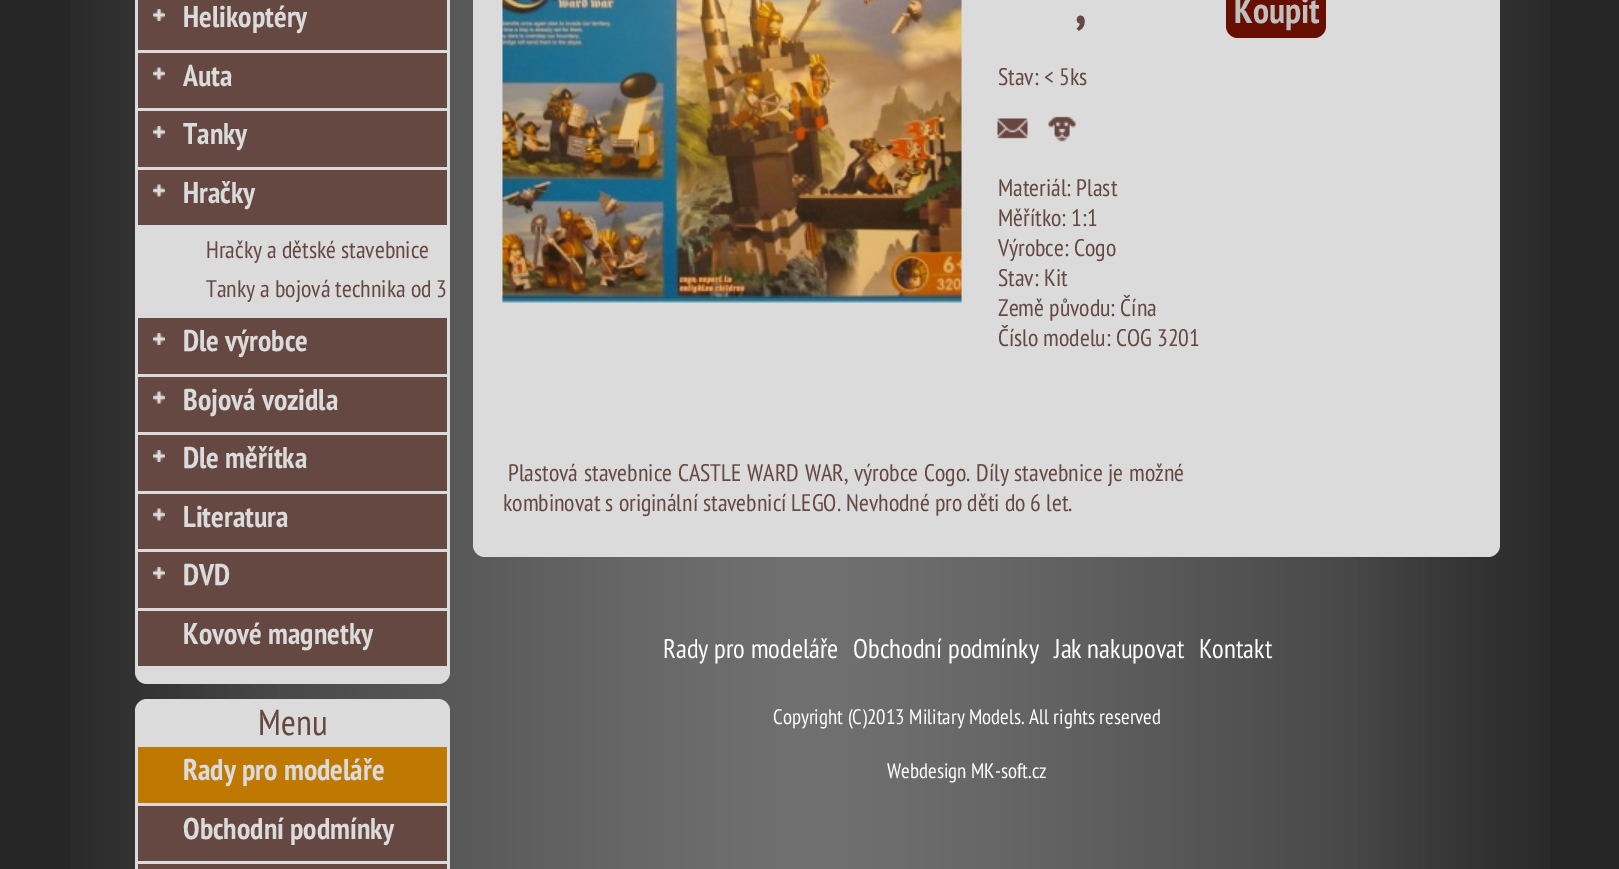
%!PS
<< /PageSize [1619 869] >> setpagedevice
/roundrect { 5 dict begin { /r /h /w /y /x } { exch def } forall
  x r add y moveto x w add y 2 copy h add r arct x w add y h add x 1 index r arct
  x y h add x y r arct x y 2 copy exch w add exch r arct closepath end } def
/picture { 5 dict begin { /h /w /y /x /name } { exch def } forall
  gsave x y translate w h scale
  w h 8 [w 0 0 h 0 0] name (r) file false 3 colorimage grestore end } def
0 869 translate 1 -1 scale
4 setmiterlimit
0.149 setgray
0 0 1619 869 rectfill
(img1.rgb) 71 0 1479 869 picture
0.859 setgray
135 -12 315 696 12 roundrect fill
0.4 0.282 0.259 setrgbcolor
138 0 309 50 rectfill
(img2.rgb) 153 9 12 12 picture
/PTSansNarrow-Bold [30 0 0 -30 0 0] selectfont
0.859 setgray
183 27 moveto (Helikoptéry) show
0.4 0.282 0.259 setrgbcolor
138 53 309 55 rectfill
(img3.rgb) 153 67 12 13 picture
0.859 setgray
183 86 moveto (Auta) show
0.4 0.282 0.259 setrgbcolor
138 111 309 56 rectfill
(img2.rgb) 153 126 12 12 picture
0.859 setgray
183 144 moveto (Tanky) show
0.4 0.282 0.259 setrgbcolor
138 170 309 55 rectfill
(img3.rgb) 153 184 12 13 picture
0.859 setgray
183 203 moveto (Hračky) show
/PTSansNarrow-Regular [24 0 0 -24 0 0] selectfont
0.4 0.282 0.259 setrgbcolor
206 258 moveto (Hračky a dětské stavebnice) show
206 297 moveto (Tanky a bojová technika od 3) show
138 318 309 56 rectfill
(img2.rgb) 153 333 12 12 picture
/PTSansNarrow-Bold [30 0 0 -30 0 0] selectfont
0.859 setgray
183 351 moveto (Dle výrobce) show
0.4 0.282 0.259 setrgbcolor
138 377 309 55 rectfill
(img3.rgb) 153 391 12 13 picture
0.859 setgray
183 410 moveto (Bojová vozidla) show
0.4 0.282 0.259 setrgbcolor
138 435 309 56 rectfill
(img2.rgb) 153 450 12 12 picture
0.859 setgray
183 468 moveto (Dle měřítka) show
0.4 0.282 0.259 setrgbcolor
138 494 309 55 rectfill
(img3.rgb) 153 508 12 13 picture
0.859 setgray
183 527 moveto (Literatura) show
0.4 0.282 0.259 setrgbcolor
138 552 309 56 rectfill
(img2.rgb) 153 567 12 12 picture
0.859 setgray
183 585 moveto (DVD) show
0.4 0.282 0.259 setrgbcolor
138 611 309 55 rectfill
0.859 setgray
183 644 moveto (Kovové magnetky) show
135 699 315 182 12 roundrect fill
/PTSansNarrow-Regular [36 0 0 -36 0 0] selectfont
0.4 0.282 0.259 setrgbcolor
258 735 moveto (Menu) show
0.749 0.475 0 setrgbcolor
138 747 309 56 rectfill
/PTSansNarrow-Bold [30 0 0 -30 0 0] selectfont
0.859 setgray
183 780 moveto (Rady pro modeláře) show
0.4 0.282 0.259 setrgbcolor
138 806 309 55 rectfill
0.859 setgray
183 839 moveto (Obchodní podmínky) show
0.4 0.282 0.259 setrgbcolor
138 864 309 5 rectfill
0.859 setgray
473 -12 1027 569 12 roundrect fill
(img4.rgb) 502 0 460 303 picture
/PTSansNarrow-Bold [54 0 0 -54 0 0] selectfont
0.4 0.282 0.259 setrgbcolor
1075 23 moveto (,) show
0.4 0.059 0 setrgbcolor
1226 -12 100 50 12 roundrect fill
/PTSansNarrow-Bold [36 0 0 -36 0 0] selectfont
0.749 setgray
1234 23 moveto (Koupit) show
/PTSansNarrow-Regular [24 0 0 -24 0 0] selectfont
0.4 0.282 0.259 setrgbcolor
998 85 moveto (Stav: < 5ks) show
(img5.rgb) 997 118 31 21 picture
(img6.rgb) 1048 116 28 26 picture
998 196 moveto (Materiál: Plast) show
998 226 moveto (Měřítko: 1:1) show
998 256 moveto (Výrobce: Cogo) show
998 286 moveto (Stav: Kit) show
998 316 moveto (Země původu: Čína) show
998 346 moveto (Číslo modelu: COG 3201) show
508 481 moveto 0.75 0 32 (Plastová stavebnice CASTLE WARD WAR, výrobce Cogo. Díly stavebnice je možné) widthshow
503 511 moveto (kombinovat s originální stavebnicí LEGO. Nevhodné pro děti do 6 let.) show
/PTSansNarrow-Regular [27 0 0 -27 0 0] selectfont
1 setgray
663 658 moveto (Rady pro modeláře) show
853 658 moveto (Obchodní podmínky) show
1054 658 moveto (Jak nakupovat) show
1199 658 moveto (Kontakt) show
/PTSansNarrow-Regular [21 0 0 -21 0 0] selectfont
773 724 moveto (Copyright \(C\)2013 Military Models. All rights reserved) show
887 778 moveto (Webdesign MK-soft.cz) show
showpage
